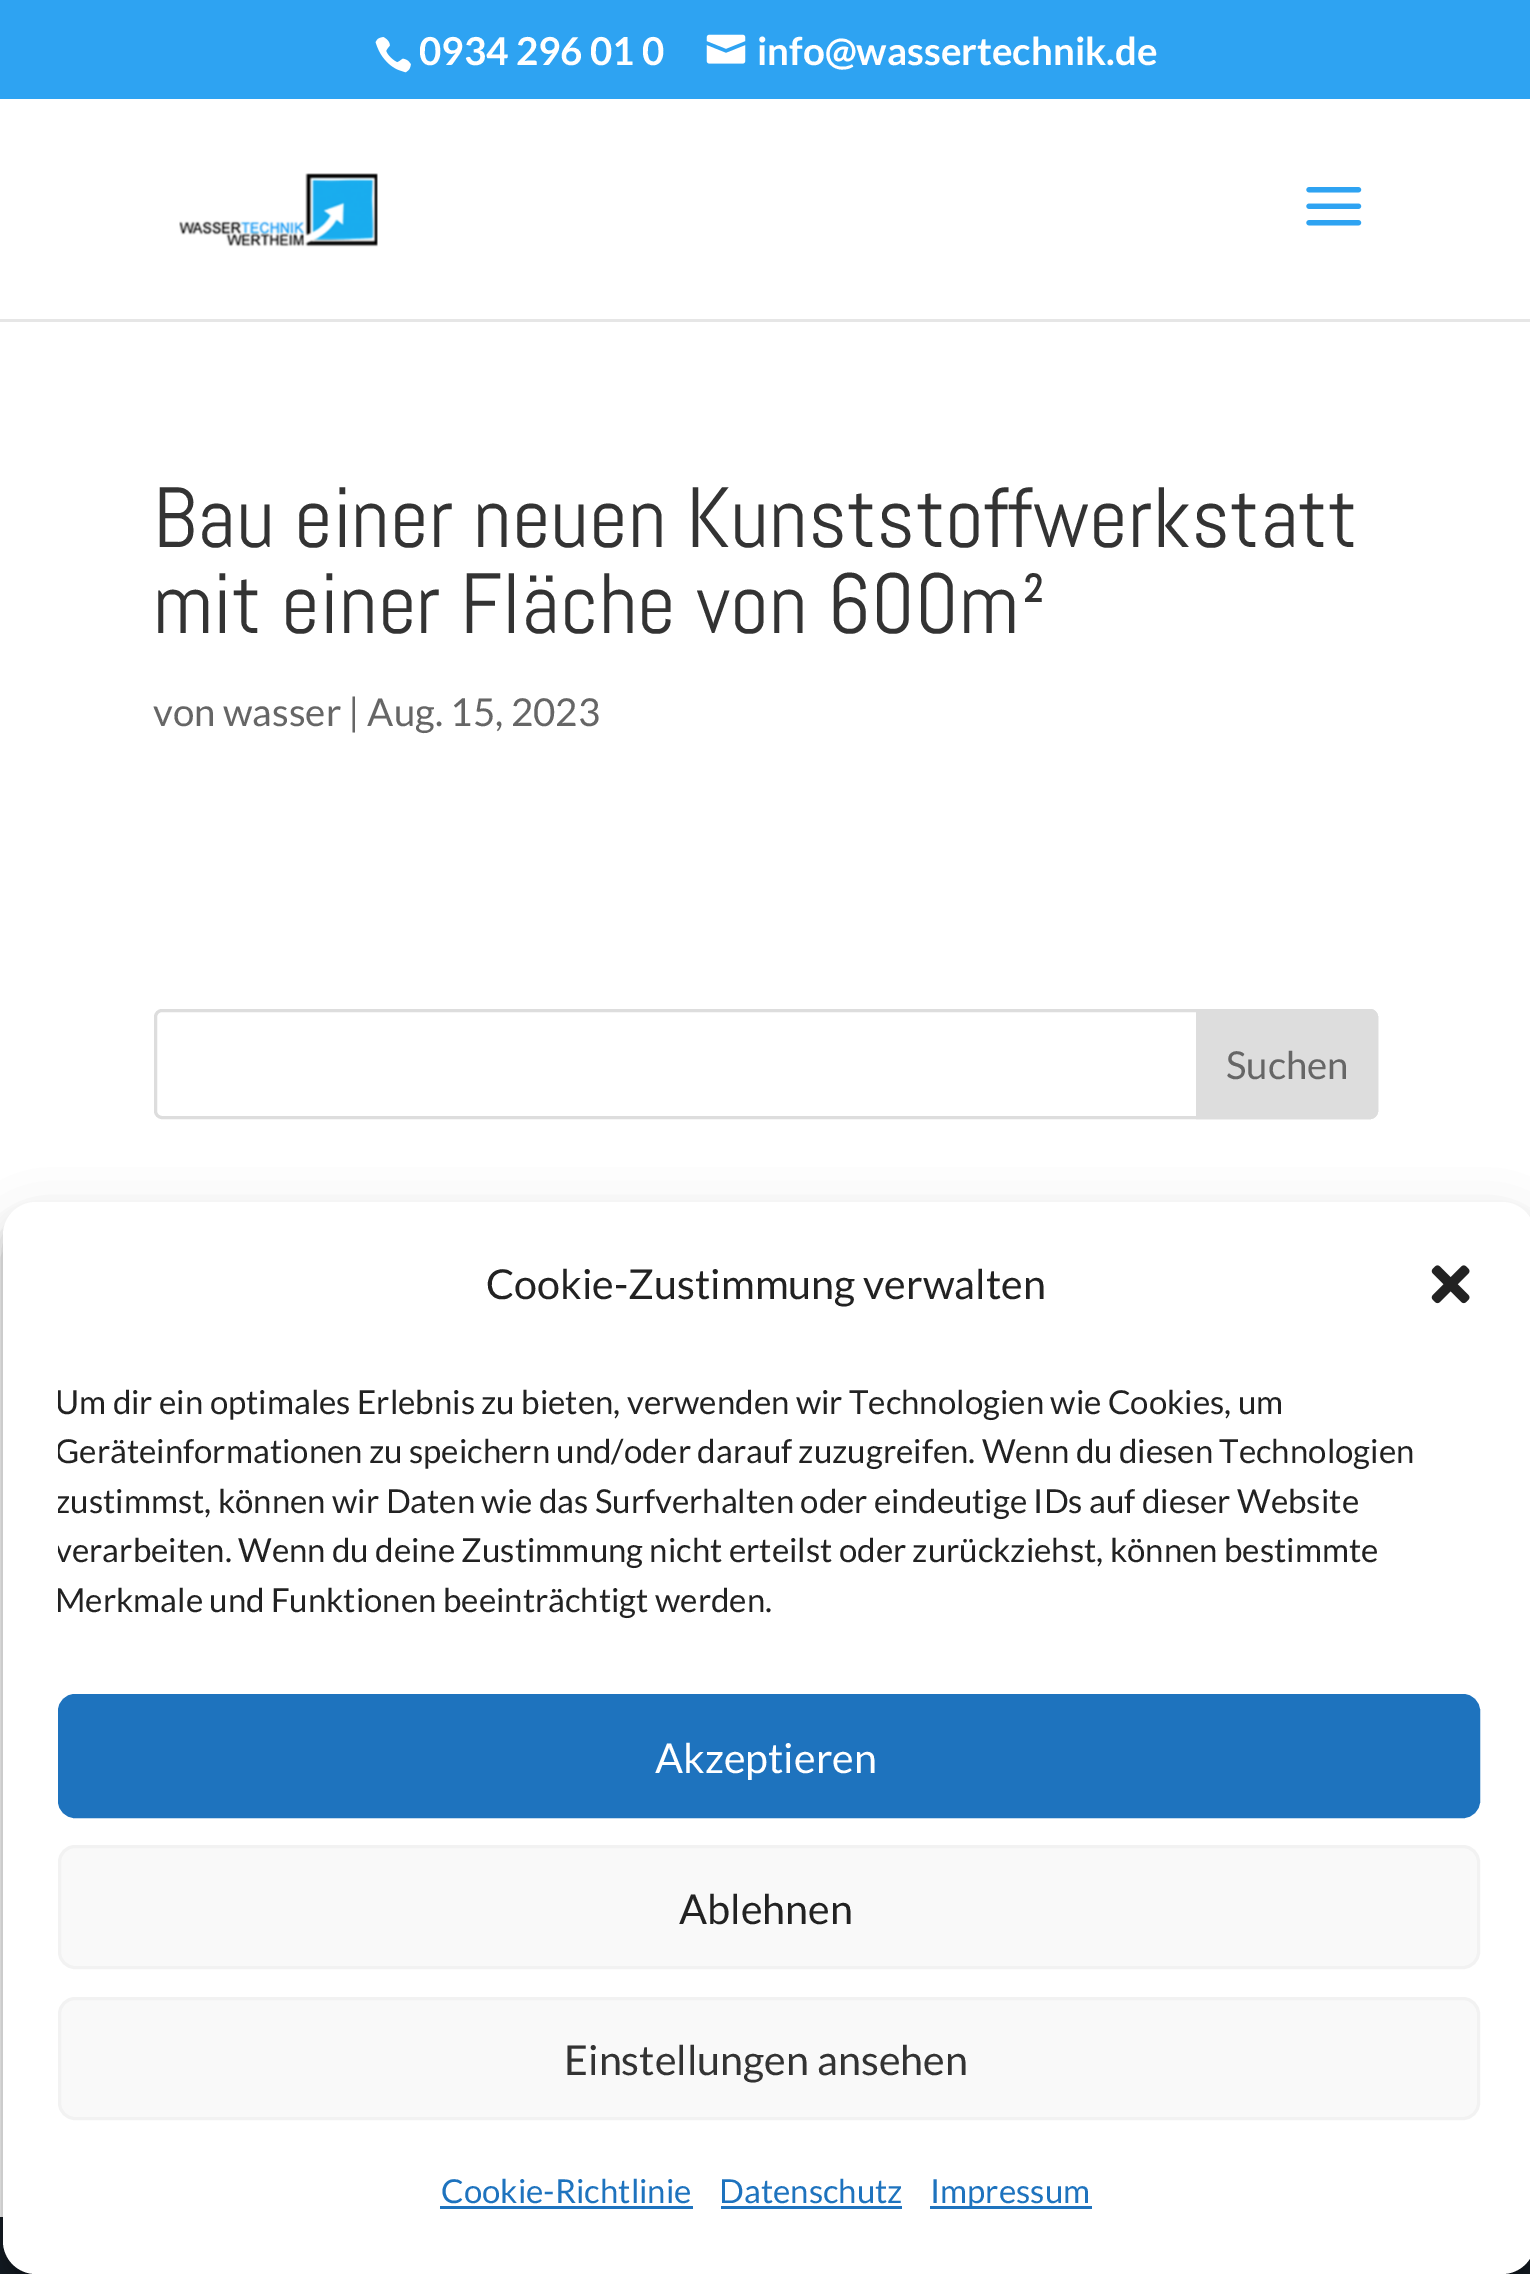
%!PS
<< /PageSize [1530 2274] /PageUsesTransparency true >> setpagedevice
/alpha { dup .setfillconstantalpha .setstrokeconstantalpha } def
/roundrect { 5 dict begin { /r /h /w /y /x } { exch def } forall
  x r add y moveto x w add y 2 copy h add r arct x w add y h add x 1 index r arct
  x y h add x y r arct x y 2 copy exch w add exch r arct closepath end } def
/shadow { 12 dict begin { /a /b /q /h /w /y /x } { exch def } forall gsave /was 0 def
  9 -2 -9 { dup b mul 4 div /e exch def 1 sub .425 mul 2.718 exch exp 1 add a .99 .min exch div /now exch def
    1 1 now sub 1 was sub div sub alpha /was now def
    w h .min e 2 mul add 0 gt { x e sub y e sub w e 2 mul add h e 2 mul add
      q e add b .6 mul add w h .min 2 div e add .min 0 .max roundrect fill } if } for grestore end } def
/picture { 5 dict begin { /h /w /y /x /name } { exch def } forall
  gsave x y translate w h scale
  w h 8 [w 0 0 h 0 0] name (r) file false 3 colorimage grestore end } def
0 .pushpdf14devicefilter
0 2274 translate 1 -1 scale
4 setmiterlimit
1 setgray
0 0 1530 2274 rectfill
0.18 0.639 0.949 setrgbcolor
0 0 1530 99 rectfill
(img1.rgb) 375 37 36 36 picture
/Lato-Bold [38.5 0 0 -38.5 0 0] selectfont
1 setgray
419 65 moveto (0934 296 01 0) show
(img2.rgb) 706 34 40 30 picture
757 65 moveto (info@wassertechnik.de) show
0.902 setgray
newpath 0 319 moveto 0 322 lineto 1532 322 lineto 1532 102 lineto 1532 319 lineto closepath fill
(img3.rgb) 179 173 199 74 picture
(img4.rgb) 1306 187 56 39 picture
/Abel-Regular [85.25 0 0 -85.25 0 0] selectfont
0.2 setgray
153 547 moveto (Bau einer neuen Kunststoffwerkstatt) show
153 633 moveto (mit einer Fläche von 600m²) show
/Lato-Regular [38.5 0 0 -38.5 0 0] selectfont
0.4 setgray
153 726 moveto (von wasser | Aug. 15, 2023) show
0.867 setgray
3 setlinewidth
155.5 1010.5 1221 107 6.5 roundrect stroke
newpath 1197.5 1010.5 moveto 1370 1010.5 lineto 1373.5 1010.5 1376.5 1013.5 1376.5 1017 curveto 1376.5 1111 lineto 1376.5 1114.5 1373.5 1117.5 1370 1117.5 curveto 1197.5 1117.5 lineto closepath gsave fill grestore
stroke
0.4 setgray
1226 1079 moveto (Suchen) show
0.078 0.11 0.141 setrgbcolor
0 2217 1530 57 rectfill
gsave
newpath 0 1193 moveto 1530 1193 lineto 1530 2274 lineto 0 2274 lineto closepath 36 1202 moveto 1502 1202 lineto 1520 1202 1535 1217 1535 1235 curveto 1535 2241 lineto 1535 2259 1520 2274 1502 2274 curveto 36 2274 lineto 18 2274 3 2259 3 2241 curveto 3 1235 lineto 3 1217 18 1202 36 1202 curveto closepath eoclip newpath
0 setgray
3 1218 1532 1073 33 8 0.23 shadow
grestore
gsave
newpath 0 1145 moveto 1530 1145 lineto 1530 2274 lineto 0 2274 lineto closepath 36 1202 moveto 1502 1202 lineto 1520 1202 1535 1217 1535 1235 curveto 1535 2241 lineto 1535 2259 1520 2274 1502 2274 curveto 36 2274 lineto 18 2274 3 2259 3 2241 curveto 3 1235 lineto 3 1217 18 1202 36 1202 curveto closepath eoclip newpath
0 setgray
3 1229 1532 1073 33 27.5 0.19 shadow
grestore
1 setgray
3 1202 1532 1072 33 roundrect fill
/Lato-Regular [41.25 0 0 -41.25 0 0] selectfont
0.133 setgray
486 1299 moveto (Cookie-Zustimmung verwalten) show
(img5.rgb) 1431 1265 39 39 picture
gsave
58 1378 1422 261 rectclip
/Lato-Regular [33 0 0 -33 0 0] selectfont
55 1414 moveto (Um dir ein optimales Erlebnis zu bieten, verwenden wir Technologien wie Cookies, um) show
55 1463 moveto (Geräteinformationen zu speichern und/oder darauf zuzugreifen. Wenn du diesen Technologien) show
55 1513 moveto (zustimmst, können wir Daten wie das Surfverhalten oder eindeutige IDs auf dieser Website) show
55 1562 moveto (verarbeiten. Wenn du deine Zustimmung nicht erteilst oder zurückziehst, können bestimmte) show
55 1612 moveto (Merkmale und Funktionen beeinträchtigt werden.) show
grestore
0.118 0.451 0.745 setrgbcolor
59.5 1695.5 1419 121 15.5 roundrect gsave fill grestore
stroke
1 setgray
655 1773 moveto (Akzeptieren) show
0.976 setgray
59.5 1846.5 1419 121 15.5 roundrect gsave fill grestore
0.949 setgray
stroke
0.133 setgray
679 1924 moveto (Ablehnen) show
0.976 setgray
59.5 1998.5 1419 120 15.5 roundrect gsave fill grestore
0.949 setgray
stroke
0.2 setgray
564 2075 moveto (Einstellungen ansehen) show
/Lato-Regular [33 0 0 -33 0 0] selectfont
0.118 0.451 0.745 setrgbcolor
441 2203 moveto (Cookie-Richtlinie) show
440 2206 253 3 rectfill
719 2203 moveto (Datenschutz) show
721 2206 181 3 rectfill
930 2206 162 3 rectfill
930 2203 moveto (Impressum) show
.poppdf14devicefilter showpage
